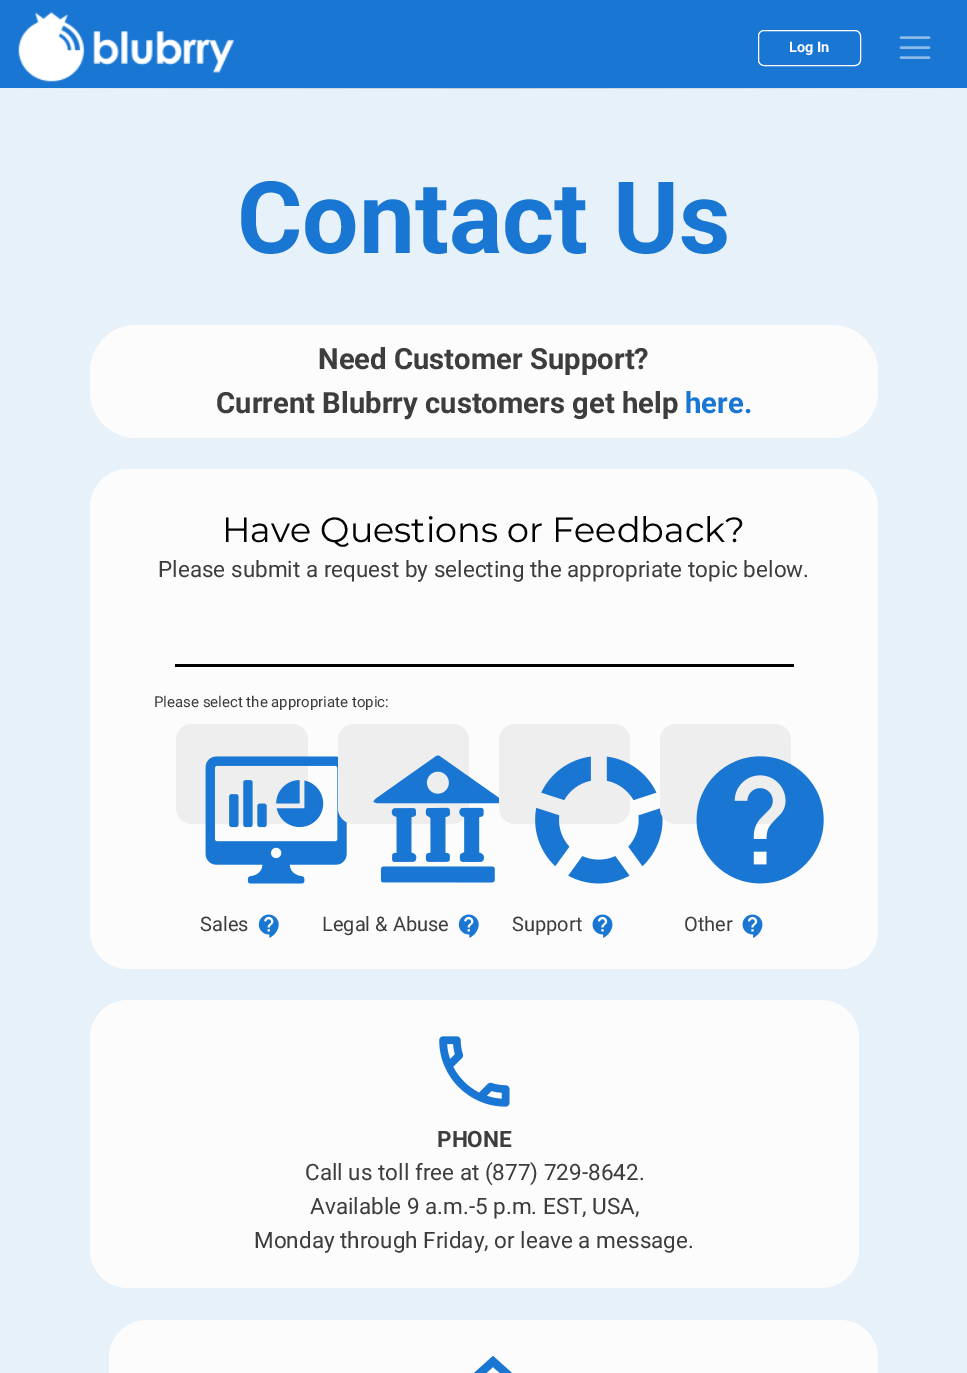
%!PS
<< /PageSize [967 1373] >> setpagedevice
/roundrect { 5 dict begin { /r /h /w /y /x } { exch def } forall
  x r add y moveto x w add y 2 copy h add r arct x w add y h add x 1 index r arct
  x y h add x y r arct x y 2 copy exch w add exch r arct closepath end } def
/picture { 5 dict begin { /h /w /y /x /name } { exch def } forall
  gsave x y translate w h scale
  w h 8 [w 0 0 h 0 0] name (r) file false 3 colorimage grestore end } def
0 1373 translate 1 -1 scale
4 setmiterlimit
0.906 0.945 0.98 setrgbcolor
0 0 967 1373 rectfill
0.098 0.463 0.824 setrgbcolor
0 0 967 88 rectfill
(img1.rgb) 18 12 216 70 picture
1 setgray
758.5 30.5 102 35 5.5 roundrect stroke
/Roboto-Bold [14.5 0 0 -14.5 0 0] selectfont
789 52 moveto (Log In) show
0.549 0.733 0.914 setrgbcolor
2.5 setlinewidth
1 setlinecap
newpath 901 37.5 moveto 929 37.5 lineto 901 47.5 moveto 929 47.5 lineto 901 57.5 moveto 929 57.5 lineto stroke
gsave newpath 15 88 moveto 952 88 lineto 952 89 lineto 15 89 lineto closepath clip newpath
<< /ShadingType 2 /ColorSpace /DeviceRGB /Coords [-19 88 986 88] /Extend [true true] /Function << /FunctionType 3 /Domain [0 1] /Functions [<< /FunctionType 2 /Domain [0 1] /C0 [0.906 0.945 0.98] /C1 [0.769 0.804 0.835] /N 1 >> << /FunctionType 2 /Domain [0 1] /C0 [0.769 0.804 0.835] /C1 [0.906 0.945 0.98] /N 1 >>] /Bounds [0.5] /Encode [0 1 0 1] >> >> shfill grestore
/Roboto-Bold [100 0 0 -100 0 0] selectfont
0.098 0.463 0.824 setrgbcolor
237 253 moveto (Contact Us) show
0.988 setgray
90 325 788 113 46 roundrect fill
/Roboto-Bold [29.25 0 0 -29.25 0 0] selectfont
0.239 setgray
318 369 moveto (Need Customer Support?) show
216 413 moveto (Current Blubrry customers get help) show
0.098 0.463 0.824 setrgbcolor
685 413 moveto (here.) show
0.988 setgray
90 469 788 500 38 roundrect fill
/Montserrat-Regular [35 0 0 -35 0 0] selectfont
0.008 setgray
222 542 moveto (Have Questions or Feedback?) show
/Roboto-Regular [22.5 0 0 -22.5 0 0] selectfont
0.239 setgray
158 577 moveto (Please submit a request by selecting the appropriate topic below.) show
0 setgray
175 664 619 3 rectfill
/Roboto-Regular [15 0 0 -15 0 0] selectfont
0.239 setgray
154 707 moveto (Please select the appropriate topic:) show
0.933 setgray
176 724 132 100 16 roundrect fill
(img2.rgb) 205 756 142 128 picture
/Roboto-Regular [20 0 0 -20 0 0] selectfont
0.239 setgray
200 931 moveto (Sales) show
(img3.rgb) 258 914 21 24 picture
0.933 setgray
338 724 131 100 16 roundrect fill
(img4.rgb) 373 755 126 128 picture
0.239 setgray
322 931 moveto (Legal & Abuse) show
(img3.rgb) 458 914 21 24 picture
0.933 setgray
499 724 131 100 16 roundrect fill
(img5.rgb) 535 756 128 128 picture
0.239 setgray
512 931 moveto (Support) show
(img6.rgb) 592 914 21 24 picture
0.933 setgray
660 724 131 100 16 roundrect fill
(img7.rgb) 696 756 128 128 picture
0.239 setgray
684 931 moveto (Other) show
(img6.rgb) 742 914 21 24 picture
0.988 setgray
90 1000 769 288 38 roundrect fill
(img8.rgb) 439 1036 71 71 picture
/Roboto-Bold [22.5 0 0 -22.5 0 0] selectfont
0.239 setgray
437 1147 moveto (PHONE) show
/Roboto-Regular [22.5 0 0 -22.5 0 0] selectfont
305 1180 moveto (Call us toll free at \(877\) 729-8642.) show
310 1214 moveto (Available 9 a.m.-5 p.m. EST, USA,) show
254 1248 moveto (Monday through Friday, or leave a message.) show
0.988 setgray
109 1320 769 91 38 roundrect fill
0.098 0.463 0.824 setrgbcolor
newpath 493 1367 moveto 513 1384 lineto 513 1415 lineto 505 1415 lineto 505 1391 lineto 481 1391 lineto 481 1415 lineto 474 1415 lineto 474 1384 lineto closepath 493 1356 moveto 454 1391 lineto 466 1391 lineto 466 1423 lineto 489 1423 lineto 489 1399 lineto 497 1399 lineto 497 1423 lineto 520 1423 lineto 520 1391 lineto 532 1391 lineto closepath fill
showpage
